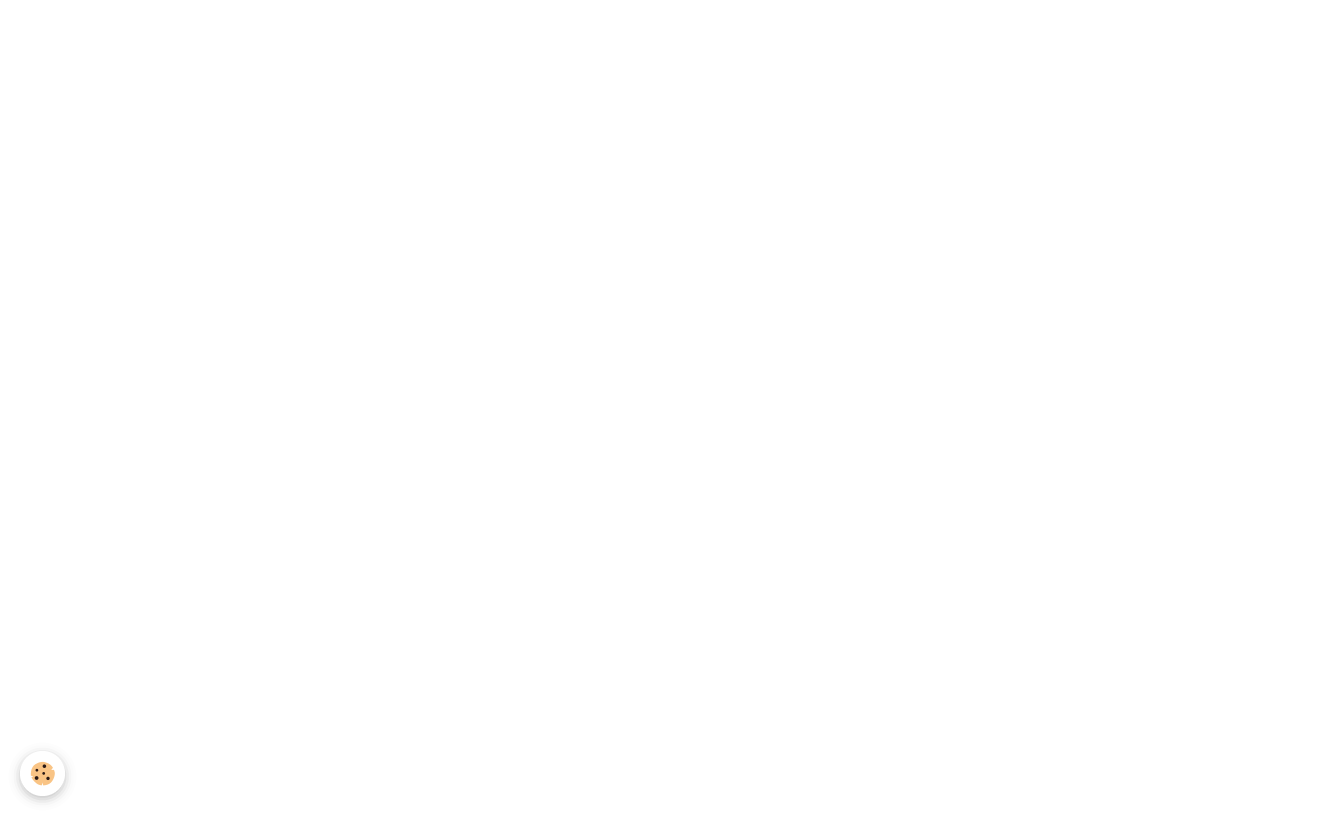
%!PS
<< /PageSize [1320 815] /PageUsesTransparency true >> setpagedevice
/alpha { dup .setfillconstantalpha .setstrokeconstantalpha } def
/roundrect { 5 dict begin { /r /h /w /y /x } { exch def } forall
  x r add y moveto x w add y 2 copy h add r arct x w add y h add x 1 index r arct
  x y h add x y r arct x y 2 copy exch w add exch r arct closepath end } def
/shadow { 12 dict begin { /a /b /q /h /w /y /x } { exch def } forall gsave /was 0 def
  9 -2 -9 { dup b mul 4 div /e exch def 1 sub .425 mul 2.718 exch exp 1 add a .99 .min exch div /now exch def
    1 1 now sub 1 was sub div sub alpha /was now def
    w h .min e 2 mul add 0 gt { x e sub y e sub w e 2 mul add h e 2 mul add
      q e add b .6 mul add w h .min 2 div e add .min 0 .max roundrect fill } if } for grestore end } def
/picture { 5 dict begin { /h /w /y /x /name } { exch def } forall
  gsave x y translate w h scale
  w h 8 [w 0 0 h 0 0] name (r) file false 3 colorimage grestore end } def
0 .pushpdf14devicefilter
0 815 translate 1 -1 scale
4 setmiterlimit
1 setgray
0 0 1320 815 rectfill
0 setgray
20 754 45 45 22.5 5 0.24 shadow
1 setgray
newpath 42.5 773.5 22.5 0 360 arc closepath fill
(img1.rgb) 30 761 25 25 picture
.poppdf14devicefilter showpage
